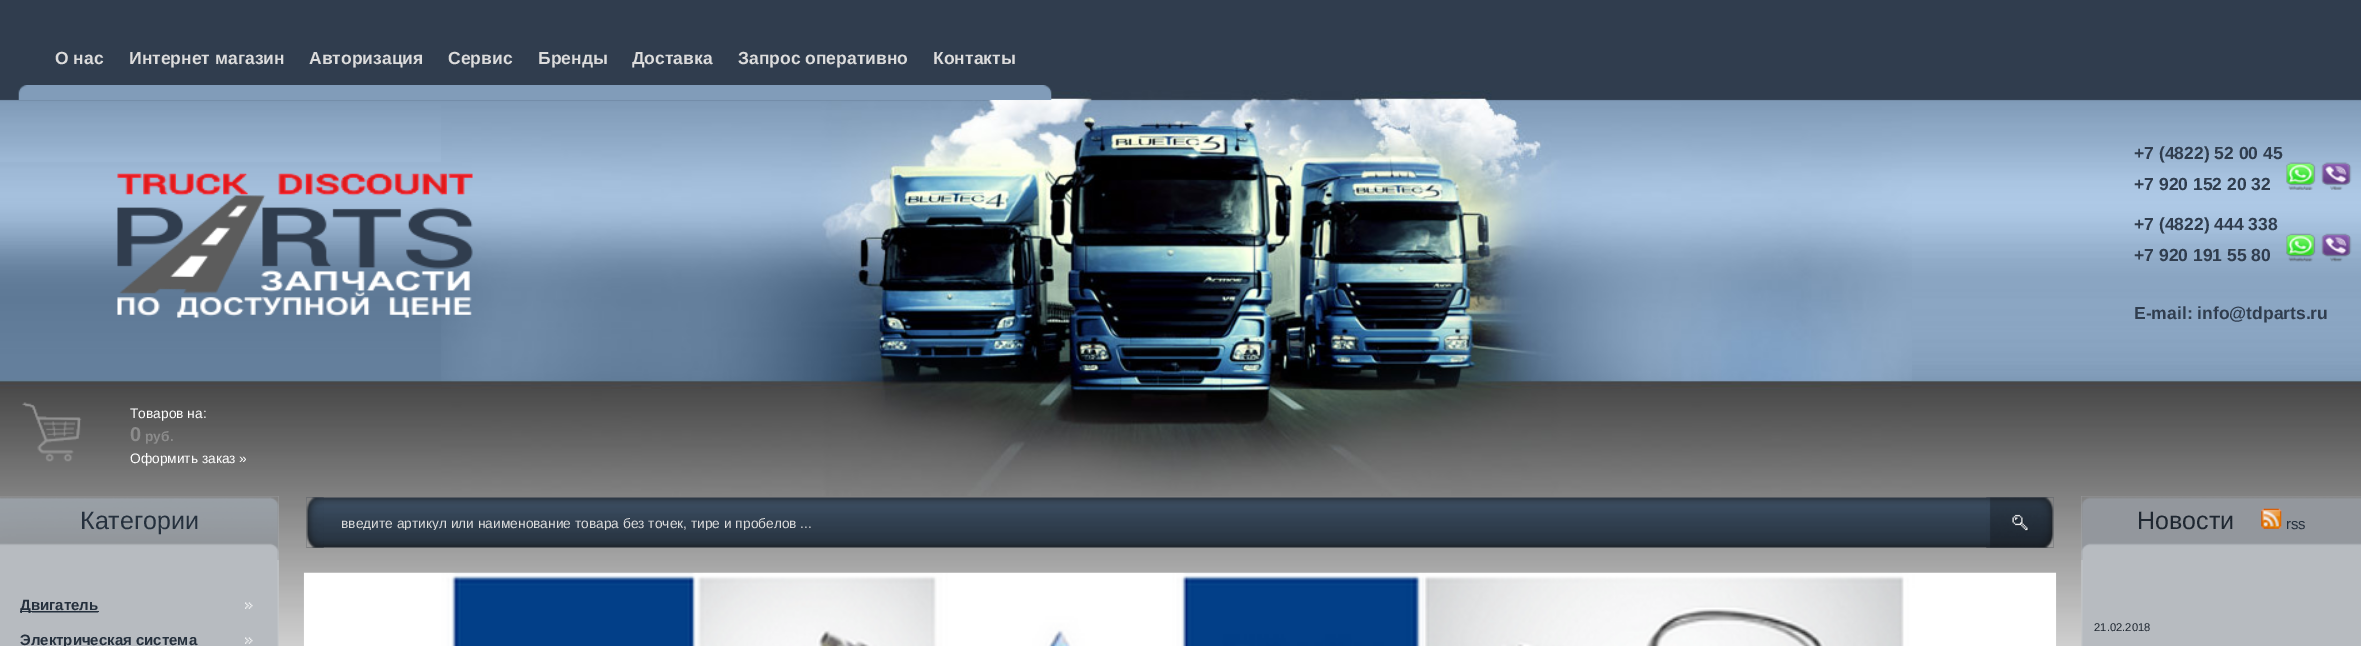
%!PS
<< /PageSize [2361 646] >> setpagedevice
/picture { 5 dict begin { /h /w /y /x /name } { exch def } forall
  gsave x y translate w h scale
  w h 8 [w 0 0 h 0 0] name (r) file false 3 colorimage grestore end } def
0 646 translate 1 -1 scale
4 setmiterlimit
1 setgray
0 0 2361 646 rectfill
(img1.rgb) 0 0 2361 646 picture
(img2.rgb) 441 90 1471 406 picture
0.506 0.612 0.725 setrgbcolor
30 85 1010 15 rectfill
/LiberationSans-Bold [17.5 0 0 -17.5 0 0] selectfont
0.863 setgray
55 64 moveto (О нас) show
129 64 moveto (Интернет магазин) show
309 64 moveto (Авторизация) show
448 64 moveto (Сервис) show
538 64 moveto (Бренды) show
632 64 moveto (Доставка) show
738 64 moveto (Запрос оперативно) show
933 64 moveto (Контакты) show
(img3.rgb) 18 85 12 15 picture
(img4.rgb) 1040 85 12 15 picture
(img9.rgb) 0 162 441 220 picture
(img5.rgb) 117 173 356 145 picture
0.188 0.239 0.306 setrgbcolor
2134 159 moveto (+7 \(4822\) 52 00 45) show
2134 190 moveto (+7 920 152 20 32) show
(img6.rgb) 2286 162 66 28 picture
2134 230 moveto (+7 \(4822\) 444 338) show
2134 261 moveto (+7 920 191 55 80) show
(img7.rgb) 2286 233 66 29 picture
2134 319 moveto (E-mail: info@tdparts.ru) show
(img8.rgb) 22 402 60 60 picture
/LiberationSans-Regular [13.75 0 0 -13.75 0 0] selectfont
1 setgray
130 418 moveto (Товаров на:) show
/LiberationSans-Bold [20 0 0 -20 0 0] selectfont
0.549 setgray
130 441 moveto (0) show
/LiberationSans-Bold [13.75 0 0 -13.75 0 0] selectfont
145 441 moveto (руб.) show
/LiberationSans-Regular [13.75 0 0 -13.75 0 0] selectfont
1 setgray
130 463 moveto (Оформить заказ ») show
(img10.rgb) 2081 496 280 150 picture
(img11.rgb) 2081 496 280 64 picture
(img12.rgb) 0 496 279 150 picture
(img13.rgb) 0 496 279 64 picture
/LiberationSans-Regular [25 0 0 -25 0 0] selectfont
0.145 0.188 0.239 setrgbcolor
80 529 moveto (Категории) show
(img14.rgb) 32 602 221 11 picture
20 611 79 1 rectfill
/LiberationSans-Bold [15 0 0 -15 0 0] selectfont
20 610 moveto (Двигатель) show
(img15.rgb) 245 637 8 7 picture
20 645 moveto (Электрическая система) show
(img16.rgb) 306 497 1748 51 picture
(img17.rgb) 306 497 18 51 picture
gsave
341 515 1542 15 rectclip
/LiberationSans-Regular [13.75 0 0 -13.75 0 0] selectfont
0.863 setgray
341 528 moveto (введите артикул или наименование товара без точек, тире и пробелов ...) show
grestore
(img18.rgb) 1986 497 68 51 picture
(img19.rgb) 303 572 1754 74 picture
/LiberationSans-Regular [25 0 0 -25 0 0] selectfont
0.122 0.153 0.192 setrgbcolor
2137 529 moveto (Новости) show
(img20.rgb) 2261 508 21 21 picture
/LiberationSans-Regular [15 0 0 -15 0 0] selectfont
0.145 0.188 0.239 setrgbcolor
2286 529 moveto (rss) show
/LiberationSans-Regular [11.25 0 0 -11.25 0 0] selectfont
0.122 0.153 0.192 setrgbcolor
2094 631 moveto (21.02.2018) show
showpage
